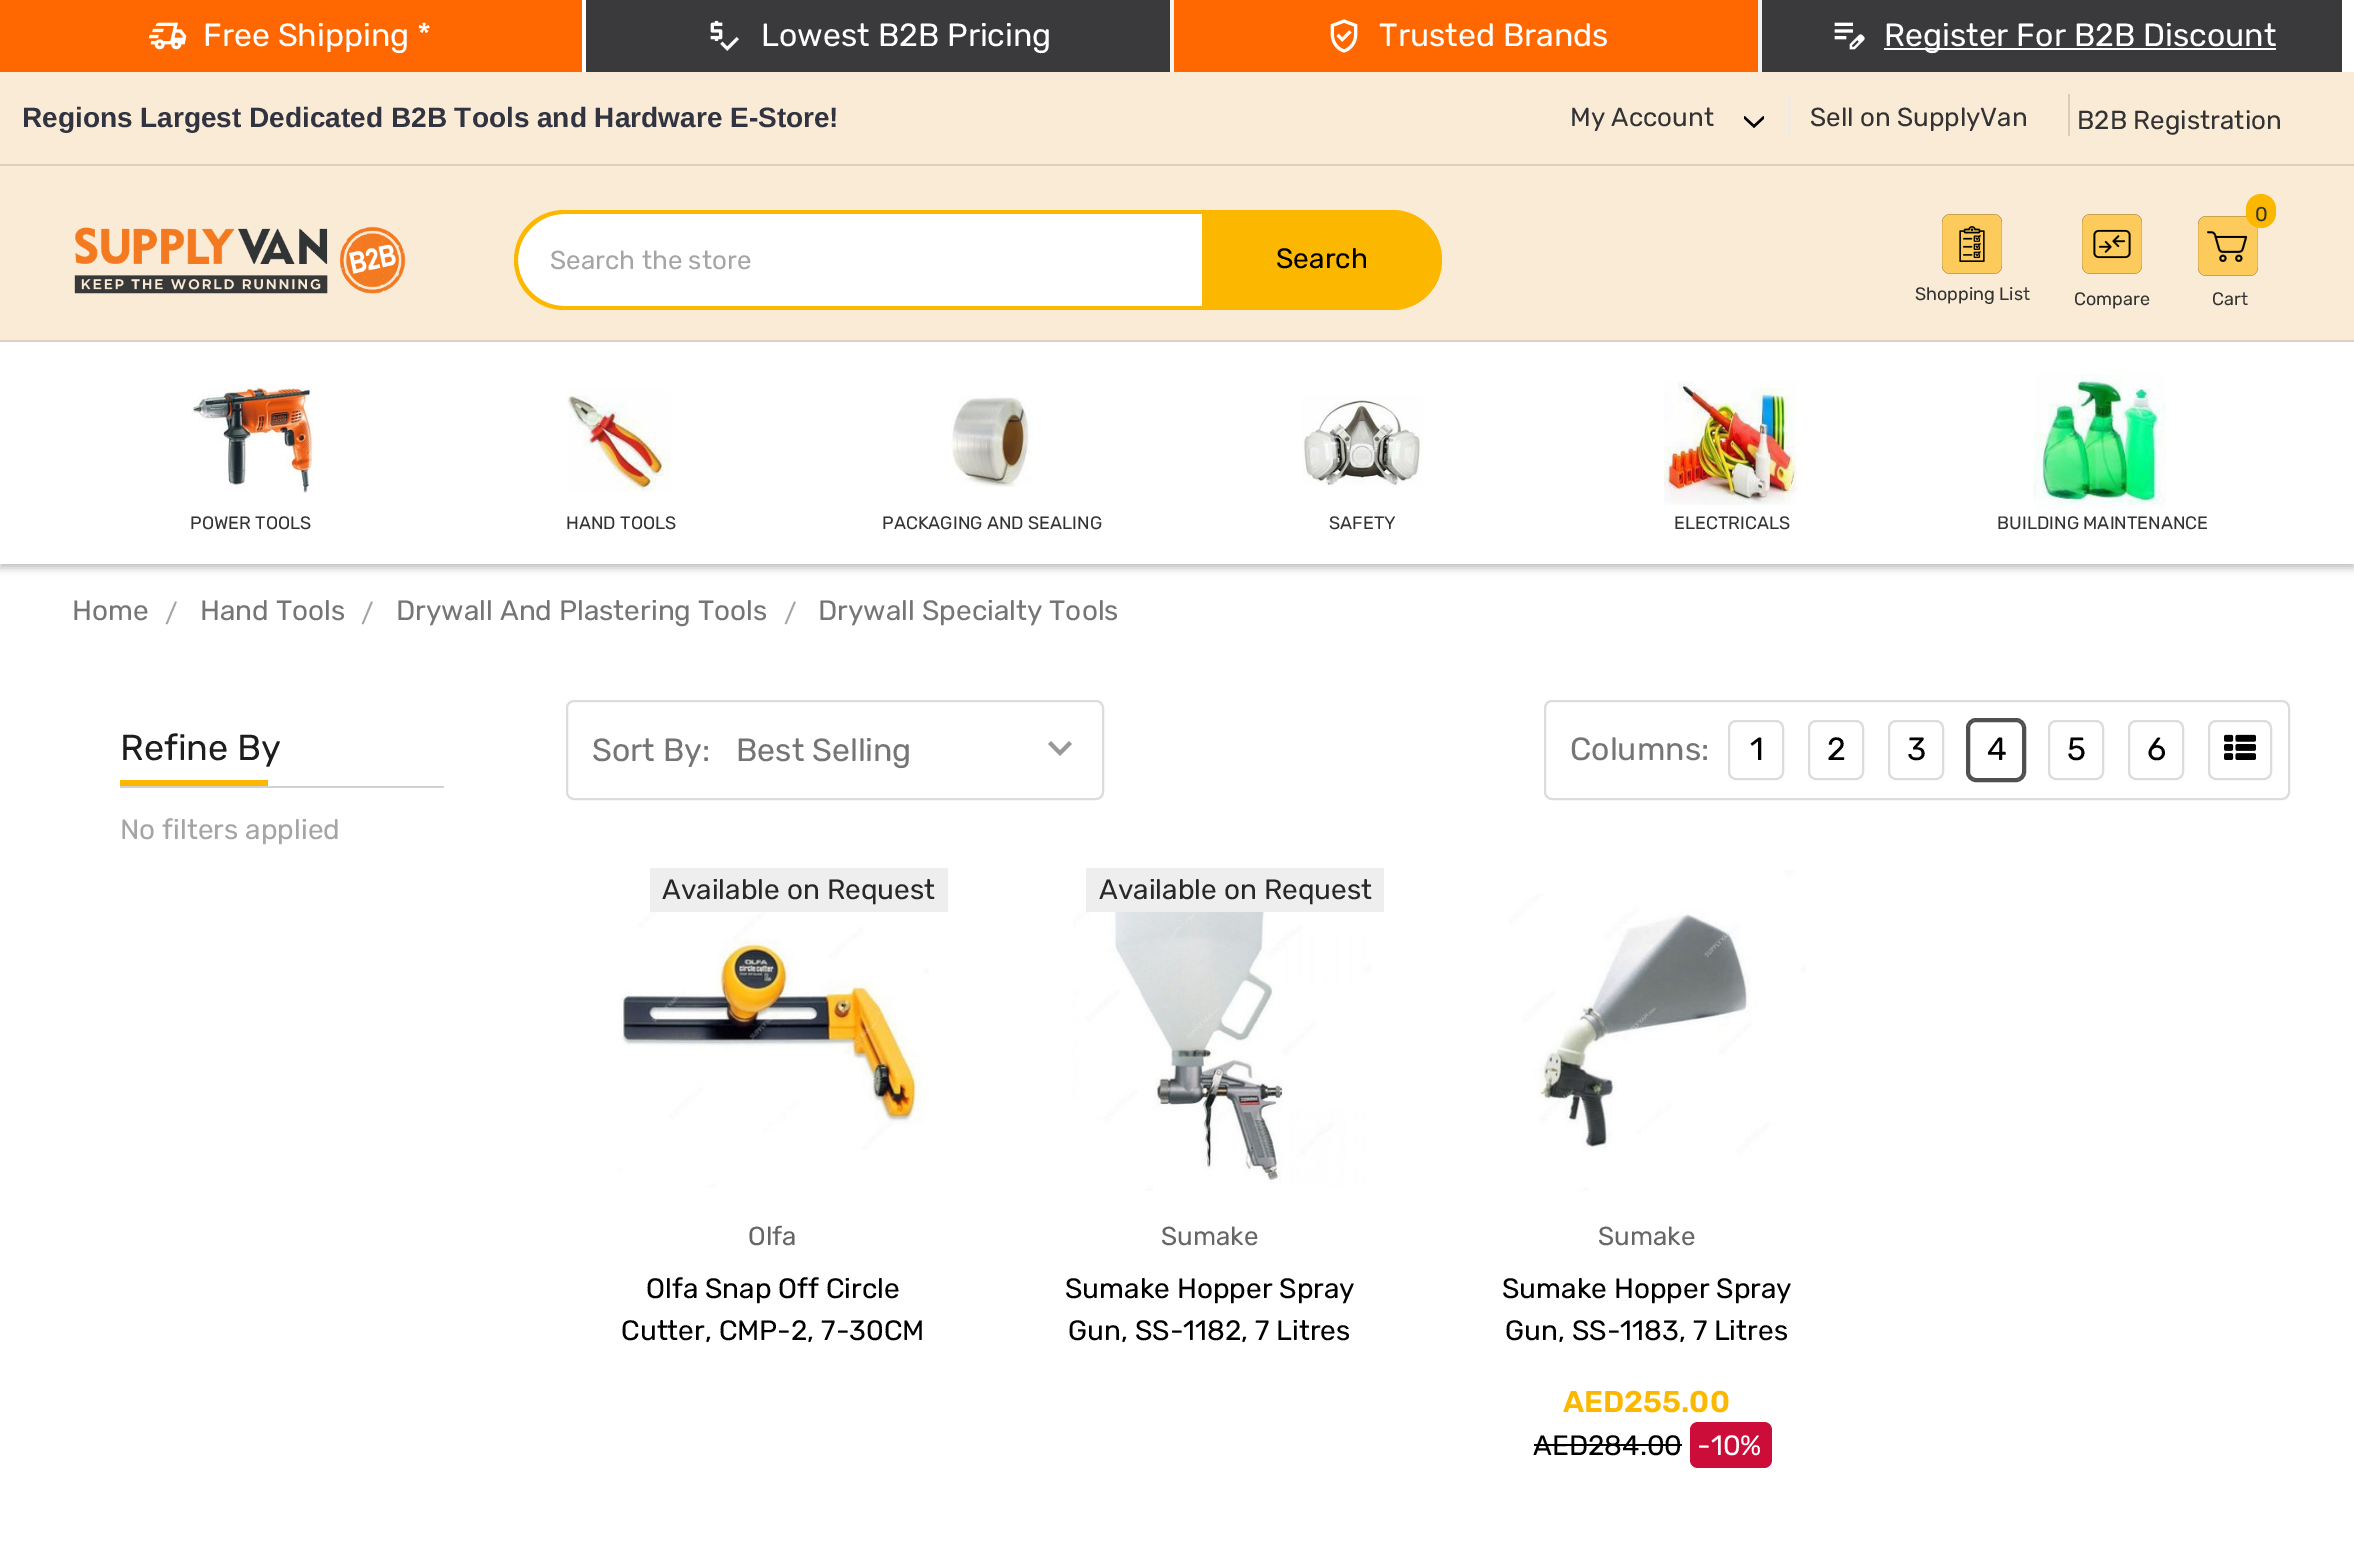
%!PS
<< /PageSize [2354 1558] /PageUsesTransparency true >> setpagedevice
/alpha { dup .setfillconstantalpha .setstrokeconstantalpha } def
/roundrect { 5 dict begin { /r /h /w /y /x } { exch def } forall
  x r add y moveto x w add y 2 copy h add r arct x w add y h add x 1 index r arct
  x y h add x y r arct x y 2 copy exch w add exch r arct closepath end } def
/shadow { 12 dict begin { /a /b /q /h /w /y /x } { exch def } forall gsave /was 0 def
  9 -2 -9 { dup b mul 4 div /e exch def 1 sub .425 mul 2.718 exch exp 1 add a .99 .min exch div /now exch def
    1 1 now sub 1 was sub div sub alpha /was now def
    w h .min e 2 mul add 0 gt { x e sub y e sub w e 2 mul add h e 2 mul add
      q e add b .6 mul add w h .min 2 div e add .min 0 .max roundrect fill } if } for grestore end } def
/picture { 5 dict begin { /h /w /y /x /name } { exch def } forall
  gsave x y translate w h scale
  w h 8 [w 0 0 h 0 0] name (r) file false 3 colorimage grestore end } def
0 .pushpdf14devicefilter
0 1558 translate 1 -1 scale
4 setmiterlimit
1 setgray
0 0 2354 1558 rectfill
0 setgray
0 4 2354 564 0 4 0.25 shadow
1 setgray
0 0 2354 564 rectfill
1 0.404 0 setrgbcolor
0 0 582 72 rectfill
(img1.rgb) 148 22 39 28 picture
/Rubik-Regular [32 0 0 -32 0 0] selectfont
1 setgray
203 46 moveto (Free Shipping *) show
0.961 setgray
1170 0 4 72 rectfill
0.227 0.227 0.235 setrgbcolor
586 0 584 72 rectfill
(img2.rgb) 710 20 29 31 picture
1 setgray
761 46 moveto (Lowest B2B Pricing) show
0.949 setgray
1758 0 4 72 rectfill
1 0.404 0 setrgbcolor
1174 0 584 72 rectfill
(img3.rgb) 1330 19 28 34 picture
1 setgray
1379 46 moveto (Trusted Brands) show
0.227 0.227 0.235 setrgbcolor
1762 0 580 72 rectfill
(img4.rgb) 1834 22 31 28 picture
1 setgray
1884 48 392 2 rectfill
1884 46 moveto (Register For B2B Discount) show
0.98 0.922 0.843 setrgbcolor
0 72 2354 92 rectfill
0.863 0.812 0.741 setrgbcolor
0 164 2354 2 rectfill
/LiberationSans-Bold [28 0 0 -28 0 0] selectfont
0.192 0.204 0.251 setrgbcolor
22 127 moveto (Regions Largest Dedicated B2B Tools and Hardware E-Store!) show
/Rubik-Regular [26 0 0 -26 0 0] selectfont
0.2 setgray
1570 126 moveto (My Account) show
(img5.rgb) 1744 115 20 13 picture
0.922 setgray
1788 96 2 40 rectfill
0.2 setgray
1810 126 moveto (Sell on SupplyVan) show
0.855 0.8 0.733 setrgbcolor
2068 94 2 42 rectfill
0.2 setgray
2077 129 moveto (B2B Registration) show
0.98 0.922 0.843 setrgbcolor
0 166 2354 174 rectfill
0.875 0.82 0.749 setrgbcolor
0 340 2354 2 rectfill
(img6.rgb) 74 226 332 68 picture
1 setgray
514 210 928 100 50 roundrect fill
0.988 0.718 0 setrgbcolor
newpath 564 210 moveto 1392 210 lineto 1420 210 1442 232 1442 260 curveto 1442 288 1420 310 1392 310 curveto 564 310 lineto 536 310 514 288 514 260 curveto 514 232 536 210 564 210 curveto closepath 564 214 moveto 1392 214 lineto 1420 214 1442 235 1442 260 curveto 1442 285 1420 306 1392 306 curveto 564 306 lineto 539 306 518 285 518 260 curveto 518 235 539 214 564 214 curveto closepath eofill
0.647 setgray
550 269 moveto (Search the store) show
0.988 0.718 0 setrgbcolor
newpath 1202 210 moveto 1392 210 lineto 1419.5 210 1442 232.5 1442 260 curveto 1442 287.5 1419.5 310 1392 310 curveto 1202 310 lineto closepath fill
/Rubik-Regular [28 0 0 -28 0 0] selectfont
0 setgray
1276 268 moveto (Search) show
(img7.rgb) 1942 214 60 60 picture
/Rubik-Regular [18 0 0 -18 0 0] selectfont
0.2 setgray
1915 300 moveto (Shopping List) show
(img8.rgb) 2082 214 60 60 picture
2074 305 moveto (Compare) show
(img9.rgb) 2198 216 60 60 picture
0.988 0.718 0 setrgbcolor
2246 194 30 34 15 roundrect fill
/Rubik-Regular [20 0 0 -20 0 0] selectfont
0.2 setgray
2255 221 moveto (0) show
/Rubik-Regular [18 0 0 -18 0 0] selectfont
2212 305 moveto (Cart) show
(img10.rgb) 191 385 122 108 picture
190 529 moveto (POWER TOOLS) show
(img11.rgb) 567 390 104 102 picture
566 529 moveto (HAND TOOLS) show
(img12.rgb) 951 396 82 91 picture
882 529 moveto (PACKAGING AND SEALING) show
(img13.rgb) 1302 395 121 92 picture
1329 529 moveto (SAFETY) show
(img14.rgb) 1664 381 134 124 picture
1674 529 moveto (ELECTRICALS) show
(img15.rgb) 2034 374 132 136 picture
1997 529 moveto (BUILDING MAINTENANCE) show
/Rubik-Regular [28 0 0 -28 0 0] selectfont
0.459 setgray
72 620 moveto (Home) show
/Rubik-Regular [26 0 0 -26 0 0] selectfont
0.647 setgray
165 622 moveto (/) show
/Rubik-Regular [28 0 0 -28 0 0] selectfont
0.459 setgray
200 620 moveto (Hand Tools) show
/Rubik-Regular [26 0 0 -26 0 0] selectfont
0.647 setgray
361 622 moveto (/) show
/Rubik-Regular [28 0 0 -28 0 0] selectfont
0.459 setgray
396 620 moveto (Drywall And Plastering Tools) show
/Rubik-Regular [26 0 0 -26 0 0] selectfont
0.647 setgray
784 622 moveto (/) show
/Rubik-Regular [28 0 0 -28 0 0] selectfont
0.459 setgray
818 620 moveto (Drywall Specialty Tools) show
0.82 setgray
120 786 324 2 rectfill
/Rubik-Regular [36 0 0 -36 0 0] selectfont
0.114 setgray
120 760 moveto (Refine By) show
0.988 0.718 0 setrgbcolor
120 780 148 6 rectfill
/Rubik-Regular [28 0 0 -28 0 0] selectfont
0.647 setgray
120 839 moveto (No filters applied) show
0.863 setgray
2 setlinewidth
567 701 536 98 7 roundrect stroke
/Rubik-Regular [32 0 0 -32 0 0] selectfont
0.459 setgray
592 761 moveto (Sort By:) show
0.6 setgray
newpath 1069 741 moveto 1060 750.5 lineto 1051 741 lineto 1048 744 lineto 1060 756 lineto 1072 744 lineto closepath fill
0.459 setgray
736 761 moveto (Best Selling) show
0.863 setgray
1545 701 744 98 7 roundrect stroke
0.459 setgray
1570 760 moveto (Columns:) show
0.863 setgray
1729 721 54 58 7 roundrect stroke
0 setgray
1750 760 moveto (1) show
0.863 setgray
1809 721 54 58 7 roundrect stroke
0 setgray
1827 760 moveto (2) show
0.863 setgray
1889 721 54 58 7 roundrect stroke
0 setgray
1907 760 moveto (3) show
0.31 setgray
1967 719 58 62 9 roundrect stroke
1969 721 54 58 7 roundrect stroke
0 setgray
1987 760 moveto (4) show
0.863 setgray
2049 721 54 58 7 roundrect stroke
0 setgray
2067 760 moveto (5) show
0.863 setgray
2129 721 54 58 7 roundrect stroke
0 setgray
2147 760 moveto (6) show
0.863 setgray
2209 721 62 58 7 roundrect stroke
(img16.rgb) 2224 734 32 26 picture
0.933 setgray
650 868 298 44 rectfill
/Rubik-Regular [28 0 0 -28 0 0] selectfont
0.157 setgray
662 899 moveto (Available on Request) show
(img17.rgb) 618 912 311 276 picture
/Rubik-Regular [26 0 0 -26 0 0] selectfont
0.4 setgray
748 1245 moveto (Olfa) show
/Rubik-Regular [28 0 0 -28 0 0] selectfont
0 setgray
646 1298 moveto (Olfa Snap Off Circle) show
621 1340 moveto (Cutter, CMP-2, 7-30CM) show
(img18.rgb) 1073 870 299 321 picture
0.933 setgray
1086 868 298 44 rectfill
0.157 setgray
1099 899 moveto (Available on Request) show
/Rubik-Regular [26 0 0 -26 0 0] selectfont
0.4 setgray
1161 1245 moveto (Sumake) show
/Rubik-Regular [28 0 0 -28 0 0] selectfont
0 setgray
1065 1298 moveto (Sumake Hopper Spray) show
1068 1340 moveto (Gun, SS-1182, 7 Litres) show
(img19.rgb) 1509 870 297 321 picture
/Rubik-Regular [26 0 0 -26 0 0] selectfont
0.4 setgray
1598 1245 moveto (Sumake) show
/Rubik-Regular [28 0 0 -28 0 0] selectfont
0 setgray
1502 1298 moveto (Sumake Hopper Spray) show
1505 1340 moveto (Gun, SS-1183, 7 Litres) show
/Rubik-SemiBold [30 0 0 -30 0 0] selectfont
0.988 0.718 0 setrgbcolor
1563 1412 moveto (AED255.00) show
/Rubik-Regular [28 0 0 -28 0 0] selectfont
0 setgray
1533 1455 moveto (AED284.00) show
1534 1444 148 2 rectfill
0.8 0.047 0.224 setrgbcolor
1690 1422 82 46 8 roundrect fill
1 setgray
1697 1455 moveto (-10%) show
.poppdf14devicefilter showpage
